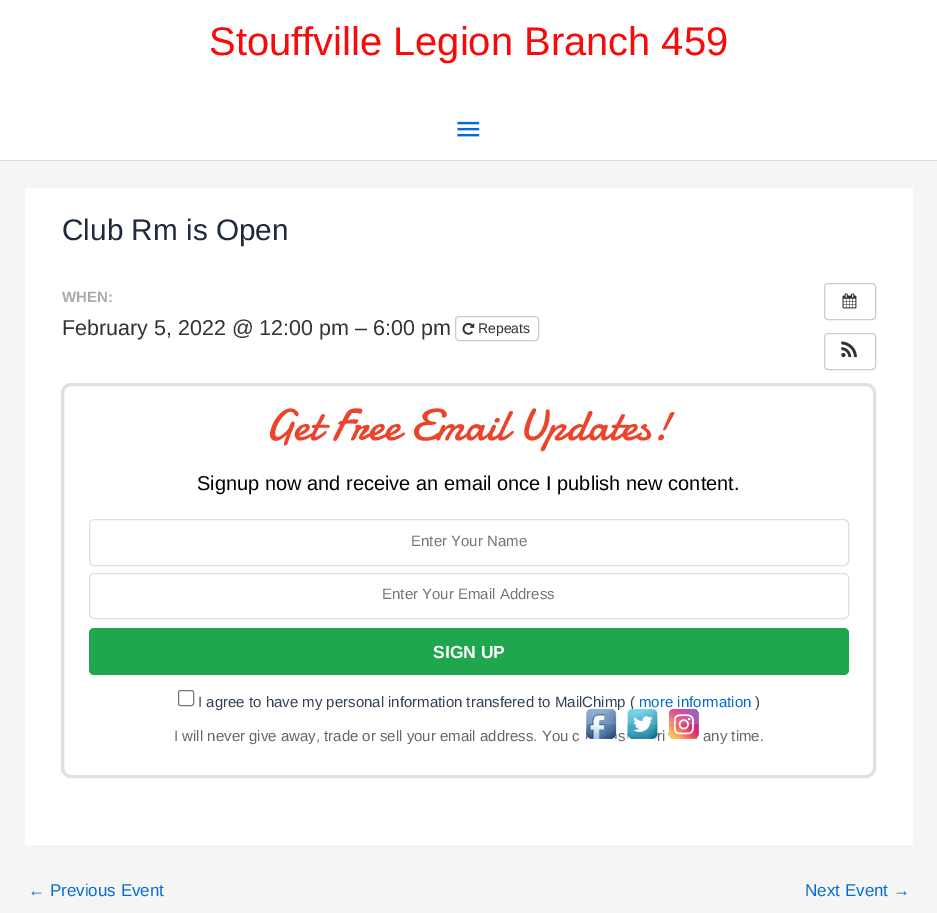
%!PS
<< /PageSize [937 913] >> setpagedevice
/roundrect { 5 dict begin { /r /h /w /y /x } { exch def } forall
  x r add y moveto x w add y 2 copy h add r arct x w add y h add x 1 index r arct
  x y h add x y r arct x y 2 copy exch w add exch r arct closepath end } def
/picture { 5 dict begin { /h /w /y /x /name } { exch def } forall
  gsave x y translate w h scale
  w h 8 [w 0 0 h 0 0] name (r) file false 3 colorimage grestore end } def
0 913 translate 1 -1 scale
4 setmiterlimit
0.961 setgray
0 0 937 913 rectfill
1 setgray
0 0 937 160 rectfill
0.867 setgray
0 160 937 1 rectfill
/LiberationSans-Regular [39.9 0 0 -39.9 0 0] selectfont
0.969 0.039 0.039 setrgbcolor
209 55 moveto (Stouffville Legion Branch 459) show
(img1.rgb) 457 121 23 16 picture
1 setgray
25 188 888 657 rectfill
/LiberationSans-Regular [29.75 0 0 -29.75 0 0] selectfont
0.118 0.161 0.231 setrgbcolor
62 240 moveto (Club Rm is Open) show
/LiberationSans-Bold [15 0 0 -15 0 0] selectfont
0.667 setgray
62 302 moveto (WHEN:) show
/LiberationSans-Regular [21.5 0 0 -21.5 0 0] selectfont
0.2 setgray
62 335 moveto (February 5, 2022 @ 12:00 pm – 6:00 pm) show
0.8 setgray
455.5 316.5 83 24 3.5 roundrect stroke
(img2.rgb) 462 322 13 13 picture
/LiberationSans-Regular [14 0 0 -14 0 0] selectfont
0.2 setgray
478 333 moveto (Repeats) show
0.8 setgray
824.5 283.5 51 36 3.5 roundrect stroke
(img3.rgb) 842 293 15 16 picture
824.5 333.5 51 36 3.5 roundrect stroke
(img4.rgb) 841 341 16 17 picture
0.878 setgray
3 setlinewidth
62.5 384.5 812 392 8.5 roundrect stroke
/Damion-Regular [45 0 0 -45 0 0] selectfont
0.922 0.263 0.173 setrgbcolor
265 440 moveto (Get Free Email Updates!) show
/LiberationSans-Regular [20 0 0 -20 0 0] selectfont
0 setgray
197 490 moveto (Signup now and receive an email once I publish new content.) show
0.875 setgray
1 setlinewidth
89.5 519.5 759 46 4.5 roundrect stroke
/LiberationSans-Regular [15 0 0 -15 0 0] selectfont
0.459 setgray
411 546 moveto (Enter Your Name) show
0.875 setgray
89.5 573.5 759 45 4.5 roundrect stroke
0.459 setgray
382 599 moveto (Enter Your Email Address) show
0.125 0.651 0.298 setrgbcolor
89 628 760 47 5 roundrect fill
/LiberationSans-Bold [17.5 0 0 -17.5 0 0] selectfont
1 setgray
433 658 moveto (SIGN UP) show
0.463 setgray
178.5 690.5 15 15 2 roundrect stroke
/LiberationSans-Regular [15 0 0 -15 0 0] selectfont
0.2 0.255 0.333 setrgbcolor
198 707 moveto (I agree to have my personal information transfered to MailChimp \() show
0.016 0.42 0.824 setrgbcolor
639 707 moveto (more information) show
0.2 0.255 0.333 setrgbcolor
755 707 moveto (\)) show
0.4 setgray
174 741 moveto (I will never give away, trade or sell your email address. You c) show
618 741 moveto (s) show
657 741 moveto (ri) show
703 741 moveto (any time.) show
/LiberationSans-Regular [17 0 0 -17 0 0] selectfont
0.016 0.42 0.824 setrgbcolor
28 896 moveto (← Previous Event) show
805 896 moveto (Next Event →) show
(img5.rgb) 586 708 31 31 picture
(img6.rgb) 627 708 31 31 picture
(img7.rgb) 668 708 31 31 picture
showpage
